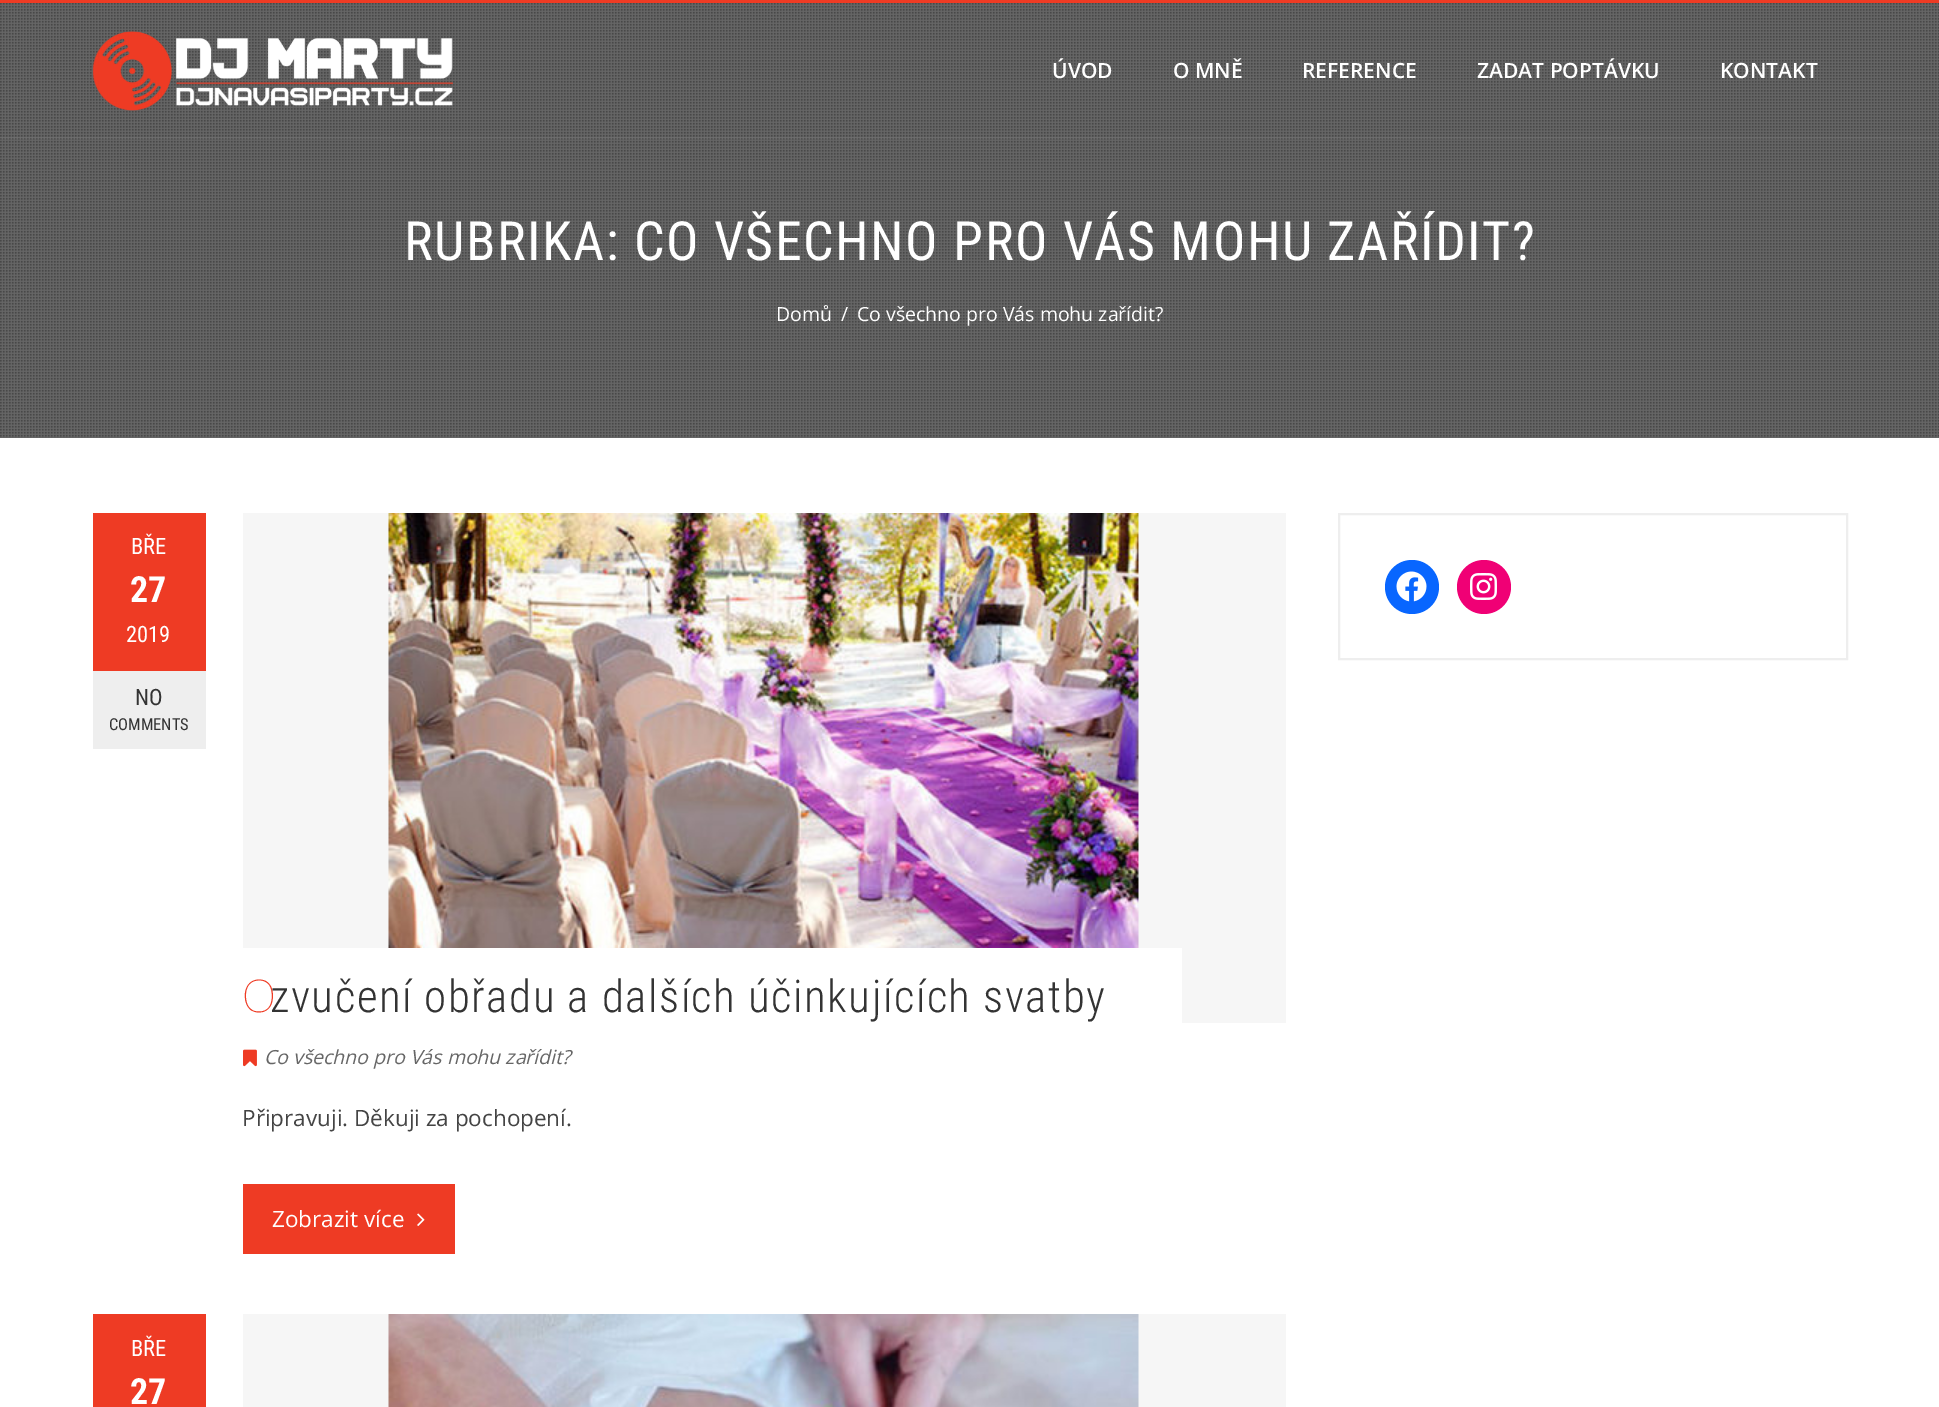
%!PS
<< /PageSize [1939 1407] /PageUsesTransparency true >> setpagedevice
/alpha { dup .setfillconstantalpha .setstrokeconstantalpha } def
/picture { 5 dict begin { /h /w /y /x /name } { exch def } forall
  gsave x y translate w h scale
  w h 8 [w 0 0 h 0 0] name (r) file false 3 colorimage grestore end } def
0 .pushpdf14devicefilter
0 1407 translate 1 -1 scale
4 setmiterlimit
1 setgray
0 0 1939 1407 rectfill
0.933 0.231 0.141 setrgbcolor
0 0 1939 3 rectfill
(img2.rgb) 0 3 1939 435 picture
0.05 alpha
1 setgray
0 137 1939 2 rectfill
1 alpha
(img1.rgb) 92 31 361 80 picture
/OpenSans-SemiBold [21 0 0 -21 0 0] selectfont
1052 78 moveto (ÚVOD) show
1173 78 moveto (O MNĚ) show
1302 78 moveto (REFERENCE) show
1477 78 moveto (ZADAT POPTÁVKU) show
1720 78 moveto (KONTAKT) show
/RobotoCondensed-Regular [54 0 0 -54 0 0] selectfont
404 260 moveto 1.5 0 (RUBRIKA: CO VŠECHNO PRO VÁS MOHU ZAŘÍDIT?) ashow
/OpenSans-Regular [19.5 0 0 -19.5 0 0] selectfont
776 321 moveto (Domů) show
841 321 moveto (/) show
857 321 moveto (Co všechno pro Vás mohu zařídit?) show
0.933 0.231 0.141 setrgbcolor
93 513 113 158 rectfill
/RobotoCondensed-Regular [22.5 0 0 -22.5 0 0] selectfont
1 setgray
131 554 moveto (BŘE) show
/RobotoCondensed-Bold [36 0 0 -36 0 0] selectfont
130 602 moveto (27) show
/RobotoCondensed-Regular [22.5 0 0 -22.5 0 0] selectfont
126 642 moveto (2019) show
0.933 setgray
93 671 113 78 rectfill
0.2 setgray
135 705 moveto (NO) show
/RobotoCondensed-Regular [16.5 0 0 -16.5 0 0] selectfont
109 730 moveto (COMMENTS) show
0.965 setgray
243 513 1043 510 rectfill
(img3.rgb) 388 513 751 435 picture
1 setgray
243 948 939 75 rectfill
/NotoSans-Thin [45 0 0 -45 0 0] selectfont
0.933 0.231 0.141 setrgbcolor
242 1012 moveto 1.5 0 (O) ashow
/RobotoCondensed-Light [45 0 0 -45 0 0] selectfont
0.2 setgray
270 1012 moveto 1.5 0 (zvučení obřadu a dalších účinkujících svatby) ashow
(img4.rgb) 243 1049 14 18 picture
/OpenSans-Italic [19.5 0 0 -19.5 0 0] selectfont
0.4 setgray
264 1064 moveto (Co všechno pro Vás mohu zařídit?) show
/OpenSans-Regular [22.5 0 0 -22.5 0 0] selectfont
0.267 setgray
242 1126 moveto (Připravuji. Děkuji za pochopení.) show
0.933 0.231 0.141 setrgbcolor
243 1184 212 70 rectfill
1 setgray
272 1227 moveto (Zobrazit více) show
(img5.rgb) 417 1213 8 13 picture
0.933 0.231 0.141 setrgbcolor
93 1314 113 93 rectfill
/RobotoCondensed-Regular [22.5 0 0 -22.5 0 0] selectfont
1 setgray
131 1356 moveto (BŘE) show
/RobotoCondensed-Bold [36 0 0 -36 0 0] selectfont
130 1404 moveto (27) show
0.965 setgray
243 1314 1043 93 rectfill
(img6.rgb) 388 1314 751 93 picture
0.933 setgray
2 setlinewidth
1339 514 508 145 rectstroke
0.031 0.4 1 setrgbcolor
newpath 1412 587 27 0 360 arc closepath fill
(img7.rgb) 1396 571 31 31 picture
0.941 0 0.459 setrgbcolor
newpath 1484 587 27 0 360 arc closepath fill
(img8.rgb) 1470 573 27 27 picture
.poppdf14devicefilter showpage
